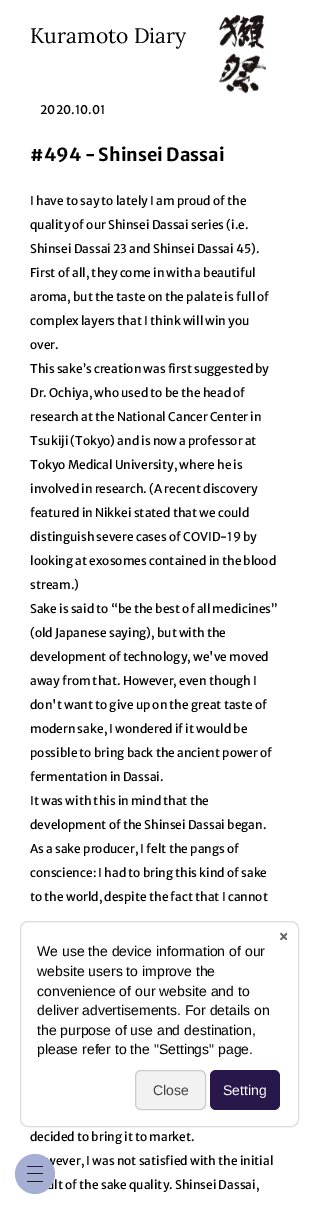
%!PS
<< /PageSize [310 1209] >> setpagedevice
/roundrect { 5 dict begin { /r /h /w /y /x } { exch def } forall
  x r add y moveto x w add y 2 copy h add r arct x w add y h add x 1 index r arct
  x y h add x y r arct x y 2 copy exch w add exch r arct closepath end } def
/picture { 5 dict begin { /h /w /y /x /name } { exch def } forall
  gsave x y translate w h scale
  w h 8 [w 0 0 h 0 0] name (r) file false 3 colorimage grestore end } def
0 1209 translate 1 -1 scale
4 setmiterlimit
1 setgray
0 0 310 1209 rectfill
(img1.rgb) 219 15 47 79 picture
/Lora-Regular [21 0 0 -21 0 0] selectfont
0 setgray
30 43 moveto (Kuramoto Diary) show
/MerriweatherSans-Regular [12 0 0 -12 0 0] selectfont
40 114 moveto (2020.10.01) show
/MerriweatherSans-Bold [18 0 0 -18 0 0] selectfont
30 161 moveto (#494 - Shinsei Dassai) show
/MerriweatherSans-Regular [12 0 0 -12 0 0] selectfont
30 205 moveto (I have to say to lately I am proud of the) show
30 229 moveto (quality of our Shinsei Dassai series \(i.e.) show
30 253 moveto (Shinsei Dassai 23 and Shinsei Dassai 45\).) show
30 277 moveto (First of all, they come in with a beautiful) show
30 301 moveto (aroma, but the taste on the palate is full of) show
30 325 moveto (complex layers that I think will win you) show
30 349 moveto (over.) show
30 373 moveto (This sake’s creation was first suggested by) show
30 397 moveto (Dr. Ochiya, who used to be the head of) show
30 421 moveto (research at the National Cancer Center in) show
30 445 moveto (Tsukiji \(Tokyo\) and is now a professor at) show
30 469 moveto (Tokyo Medical University, where he is) show
30 493 moveto (involved in research. \(A recent discovery) show
30 517 moveto (featured in Nikkei stated that we could) show
30 541 moveto (distinguish severe cases of COVID-19 by) show
30 565 moveto (looking at exosomes contained in the blood) show
30 589 moveto (stream.\)) show
30 613 moveto (Sake is said to “be the best of all medicines”) show
30 637 moveto (\(old Japanese saying\), but with the) show
30 661 moveto (development of technology, we've moved) show
30 685 moveto (away from that. However, even though I) show
30 709 moveto (don't want to give up on the great taste of) show
30 733 moveto (modern sake, I wondered if it would be) show
30 757 moveto (possible to bring back the ancient power of) show
30 781 moveto (fermentation in Dassai.) show
30 805 moveto (It was with this in mind that the) show
30 829 moveto (development of the Shinsei Dassai began.) show
30 853 moveto (As a sake producer, I felt the pangs of) show
30 877 moveto (conscience: I had to bring this kind of sake) show
30 901 moveto (to the world, despite the fact that I cannot) show
30 1141 moveto (decided to bring it to market.) show
46 1165 moveto (wever, I was not satisfied with the initial) show
47 1189 moveto (ult of the sake quality. Shinsei Dassai,) show
0.859 0.863 0.882 setrgbcolor
20.5 921.5 278 205 7.5 roundrect stroke
(img2.rgb) 280 932 7 8 picture
/LiberationSans-Regular [14 0 0 -14 0 0] selectfont
0 setgray
37 956 moveto (We use the device information of our) show
37 976 moveto (website users to improve the) show
37 996 moveto (convenience of our website and to) show
37 1015 moveto (deliver advertisements. For details on) show
37 1035 moveto (the purpose of use and destination,) show
37 1054 moveto (please refer to the "Settings" page.) show
0.949 setgray
135.5 1070.5 70 39 5.5 roundrect gsave fill grestore
0.8 setgray
stroke
0.267 setgray
153 1095 moveto (Close) show
0.153 0.09 0.294 setrgbcolor
210 1070 70 40 6 roundrect fill
1 setgray
223 1095 moveto (Setting) show
0.647 0.686 0.827 setrgbcolor
newpath 35 1174 20 0 360 arc closepath fill
0.157 0.094 0.298 setrgbcolor
27 1166 16 1 rectfill
0.114 0.118 0.122 setrgbcolor
27 1173 16 1 rectfill
27 1181 16 1 rectfill
showpage
